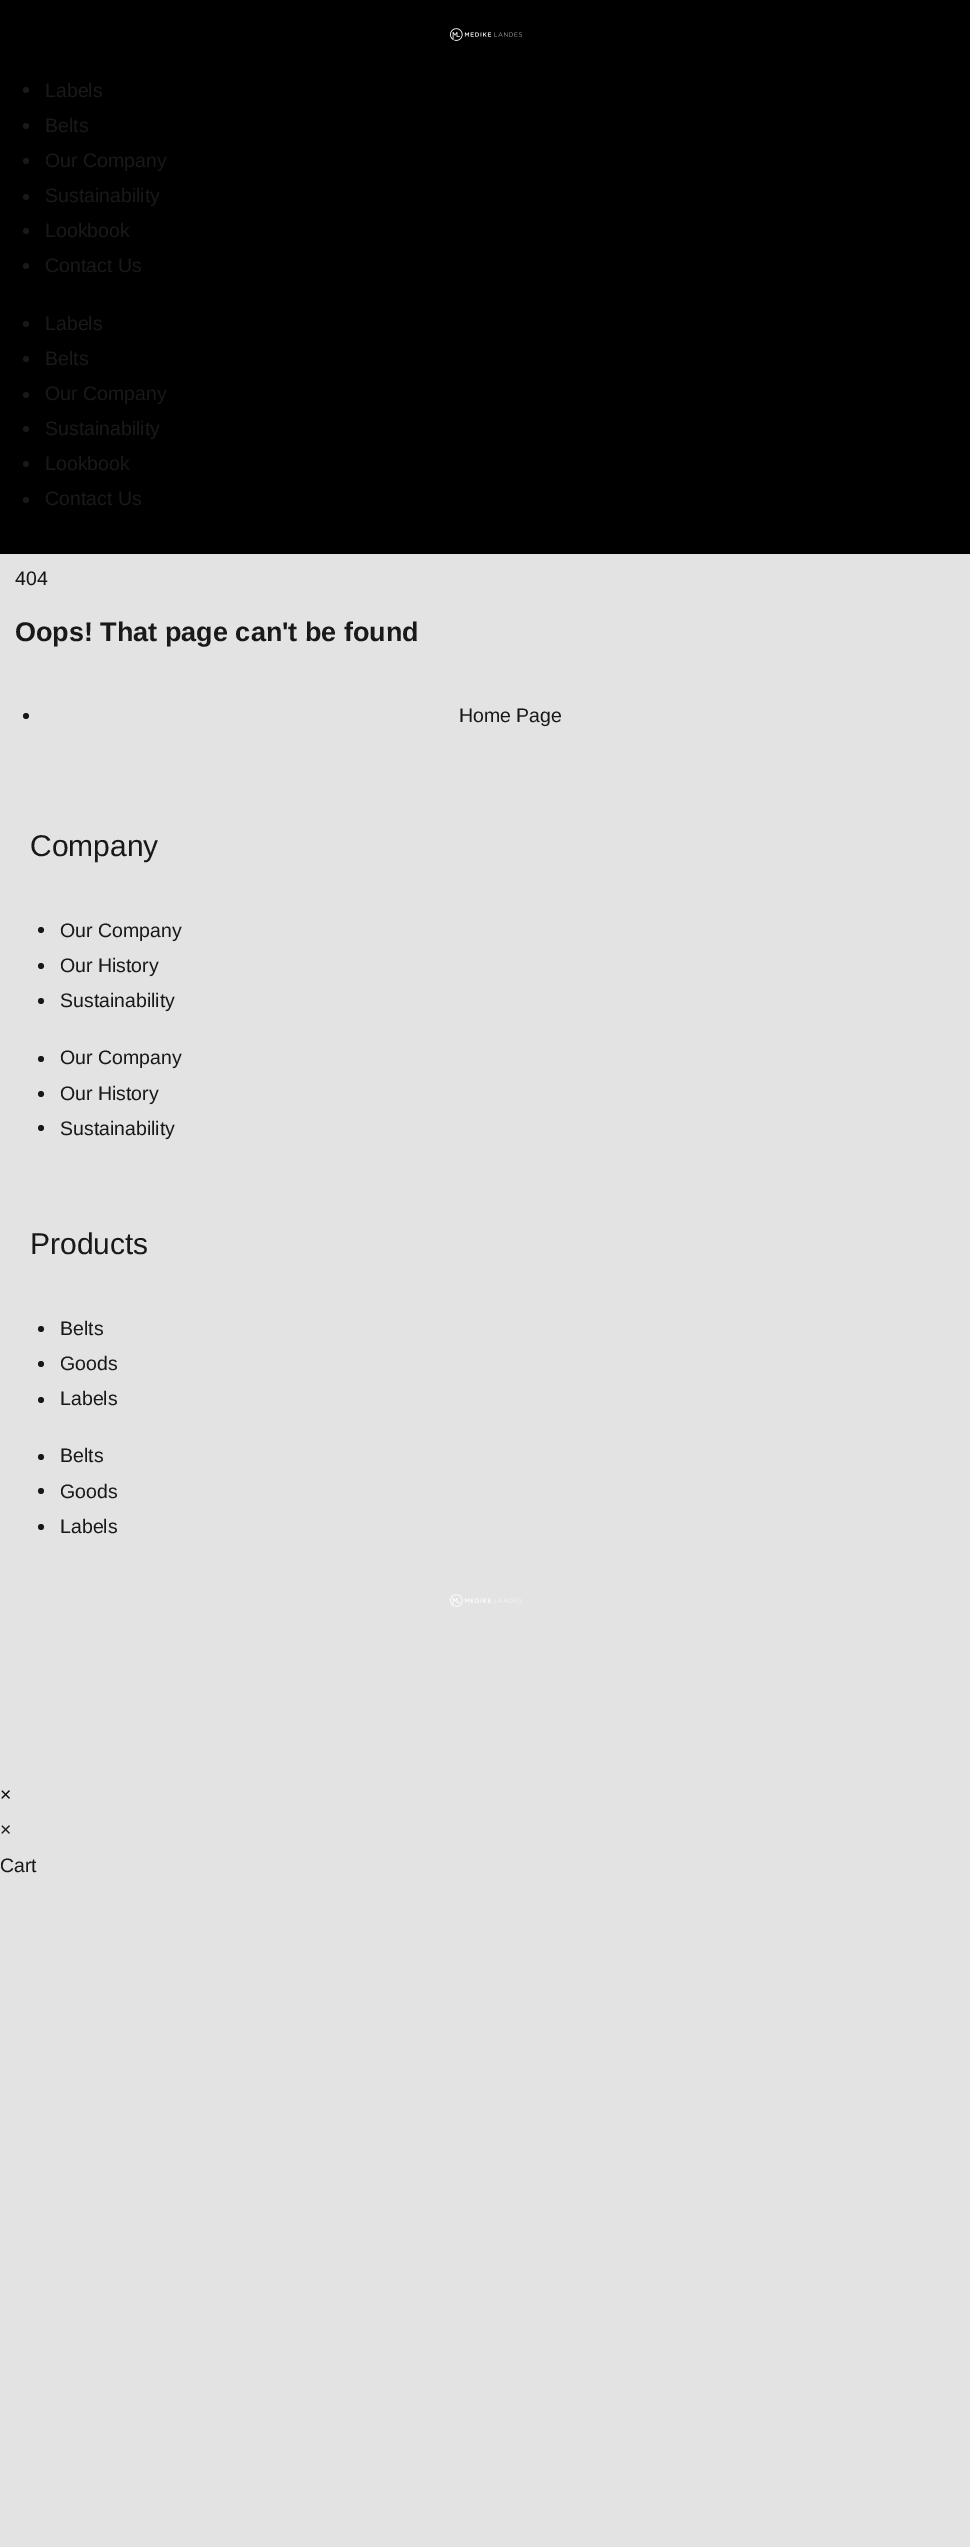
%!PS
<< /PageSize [970 2547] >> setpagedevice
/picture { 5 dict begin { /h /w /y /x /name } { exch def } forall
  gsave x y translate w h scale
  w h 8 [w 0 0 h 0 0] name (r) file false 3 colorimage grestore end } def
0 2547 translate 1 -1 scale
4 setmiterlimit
0.89 setgray
0 0 970 2547 rectfill
0 setgray
0 0 970 554 rectfill
(img1.rgb) 450 28 72 13 picture
0.098 setgray
newpath 26 90 3 0 360 arc closepath fill
/LiberationSans-Regular [19.5 0 0 -19.5 0 0] selectfont
45 97 moveto (Labels) show
newpath 26 126 3 0 360 arc closepath fill
45 132 moveto (Belts) show
newpath 26 161 3 0 360 arc closepath fill
45 167 moveto (Our Company) show
newpath 26 197 3 0 360 arc closepath fill
45 202 moveto (Sustainability) show
newpath 26 231 3 0 360 arc closepath fill
45 237 moveto (Lookbook) show
newpath 26 266 3 0 360 arc closepath fill
45 272 moveto (Contact Us) show
newpath 26 324 3 0 360 arc closepath fill
45 330 moveto (Labels) show
newpath 26 359 3 0 360 arc closepath fill
45 365 moveto (Belts) show
newpath 26 395 3 0 360 arc closepath fill
45 400 moveto (Our Company) show
newpath 26 429 3 0 360 arc closepath fill
45 435 moveto (Sustainability) show
newpath 26 464 3 0 360 arc closepath fill
45 470 moveto (Lookbook) show
newpath 26 500 3 0 360 arc closepath fill
45 505 moveto (Contact Us) show
15 585 moveto (404) show
/LiberationSans-Bold [27 0 0 -27 0 0] selectfont
15 641 moveto (Oops! That page can't be found) show
newpath 26 716 3 0 360 arc closepath fill
/LiberationSans-Regular [19.5 0 0 -19.5 0 0] selectfont
459 722 moveto (Home Page) show
/LiberationSans-Regular [30 0 0 -30 0 0] selectfont
30 856 moveto (Company) show
newpath 41 930 3 0 360 arc closepath fill
/LiberationSans-Regular [19.5 0 0 -19.5 0 0] selectfont
60 937 moveto (Our Company) show
newpath 41 966 3 0 360 arc closepath fill
60 972 moveto (Our History) show
newpath 41 1001 3 0 360 arc closepath fill
60 1007 moveto (Sustainability) show
newpath 41 1059 3 0 360 arc closepath fill
60 1064 moveto (Our Company) show
newpath 41 1094 3 0 360 arc closepath fill
60 1100 moveto (Our History) show
newpath 41 1128 3 0 360 arc closepath fill
60 1135 moveto (Sustainability) show
/LiberationSans-Regular [30 0 0 -30 0 0] selectfont
30 1254 moveto (Products) show
newpath 41 1329 3 0 360 arc closepath fill
/LiberationSans-Regular [19.5 0 0 -19.5 0 0] selectfont
60 1335 moveto (Belts) show
newpath 41 1364 3 0 360 arc closepath fill
60 1370 moveto (Goods) show
newpath 41 1400 3 0 360 arc closepath fill
60 1405 moveto (Labels) show
newpath 41 1457 3 0 360 arc closepath fill
60 1462 moveto (Belts) show
newpath 41 1491 3 0 360 arc closepath fill
60 1498 moveto (Goods) show
newpath 41 1527 3 0 360 arc closepath fill
60 1533 moveto (Labels) show
(img2.rgb) 450 1594 72 13 picture
0.039 setgray
0 1801 moveto (×) show
0.098 setgray
0 1836 moveto (×) show
0 1872 moveto (Cart) show
showpage
